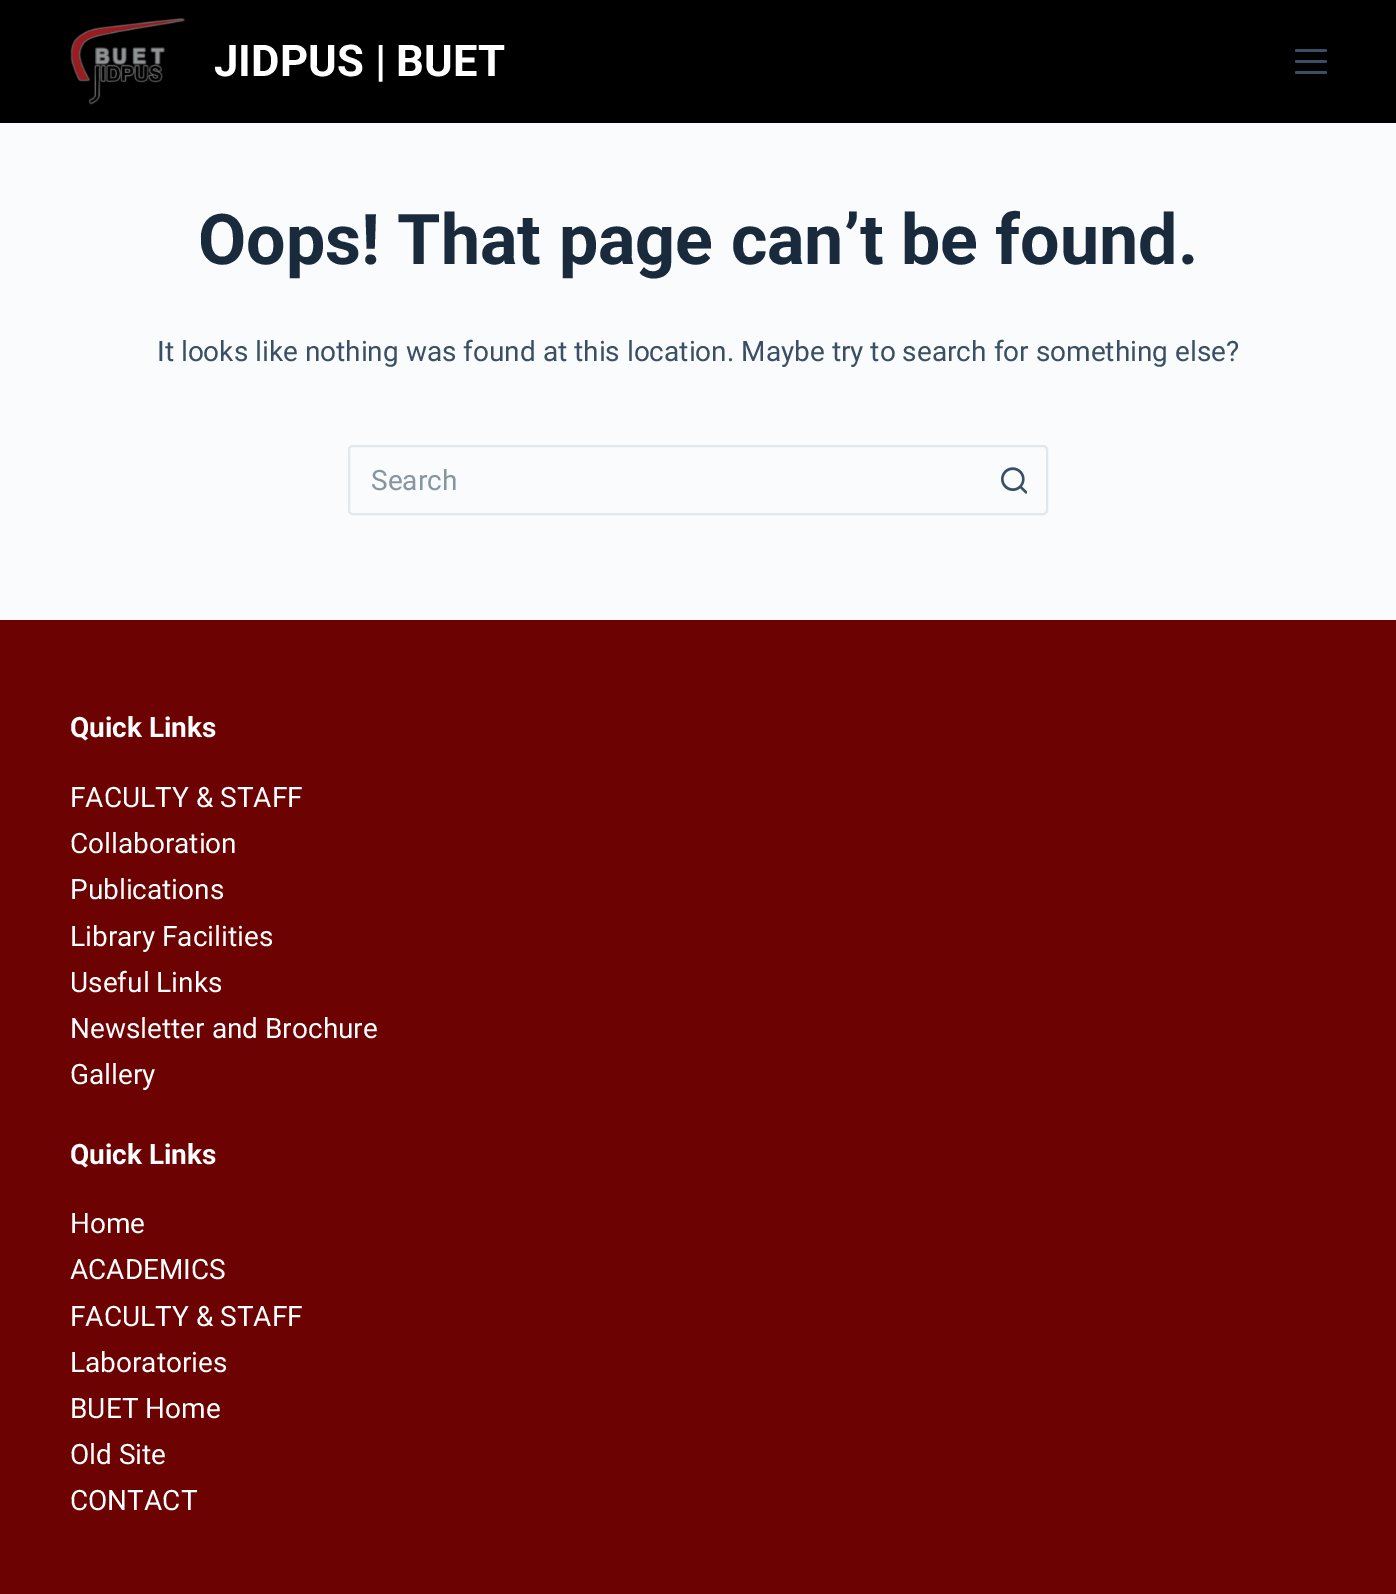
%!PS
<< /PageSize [1396 1594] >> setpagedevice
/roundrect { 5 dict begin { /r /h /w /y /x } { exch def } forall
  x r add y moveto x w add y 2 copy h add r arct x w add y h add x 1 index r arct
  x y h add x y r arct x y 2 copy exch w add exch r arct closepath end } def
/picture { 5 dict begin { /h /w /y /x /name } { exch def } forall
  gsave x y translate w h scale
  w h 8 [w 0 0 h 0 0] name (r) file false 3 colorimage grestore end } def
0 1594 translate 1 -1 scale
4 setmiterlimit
0.98 0.984 0.988 setrgbcolor
0 0 1396 1594 rectfill
0 setgray
0 0 1396 123 rectfill
(img1.rgb) 70 18 115 87 picture
/Roboto-Bold [43.75 0 0 -43.75 0 0] selectfont
1 setgray
214 76 moveto (JIDPUS | BUET) show
0.227 0.31 0.4 setrgbcolor
1295 49 32 3 1.5 roundrect fill
1295 60 32 3 1.5 roundrect fill
1295 71 32 3 1.5 roundrect fill
/Roboto-Bold [70 0 0 -70 0 0] selectfont
0.098 0.165 0.239 setrgbcolor
198 264 moveto (Oops! That page can’t be found.) show
/Roboto-Regular [28 0 0 -28 0 0] selectfont
0.227 0.31 0.4 setrgbcolor
157 361 moveto (It looks like nothing was found at this location. Maybe try to search for something else?) show
0.882 0.91 0.929 setrgbcolor
2 setlinewidth
349 446 698 68 4 roundrect stroke
0.529 0.58 0.635 setrgbcolor
371 490 moveto (Search) show
(img2.rgb) 1001 467 26 27 picture
0.427 0.008 0.008 setrgbcolor
0 620 1396 974 rectfill
/Roboto-Bold [28 0 0 -28 0 0] selectfont
1 setgray
70 737 moveto (Quick Links) show
/Roboto-Regular [28 0 0 -28 0 0] selectfont
70 807 moveto (FACULTY & STAFF) show
70 853 moveto (Collaboration) show
70 899 moveto (Publications) show
70 946 moveto (Library Facilities) show
70 992 moveto (Useful Links) show
70 1038 moveto (Newsletter and Brochure) show
70 1084 moveto (Gallery) show
/Roboto-Bold [28 0 0 -28 0 0] selectfont
70 1164 moveto (Quick Links) show
/Roboto-Regular [28 0 0 -28 0 0] selectfont
70 1233 moveto (Home) show
70 1279 moveto (ACADEMICS) show
70 1326 moveto (FACULTY & STAFF) show
70 1372 moveto (Laboratories) show
70 1418 moveto (BUET Home) show
70 1464 moveto (Old Site) show
70 1510 moveto (CONTACT) show
showpage
